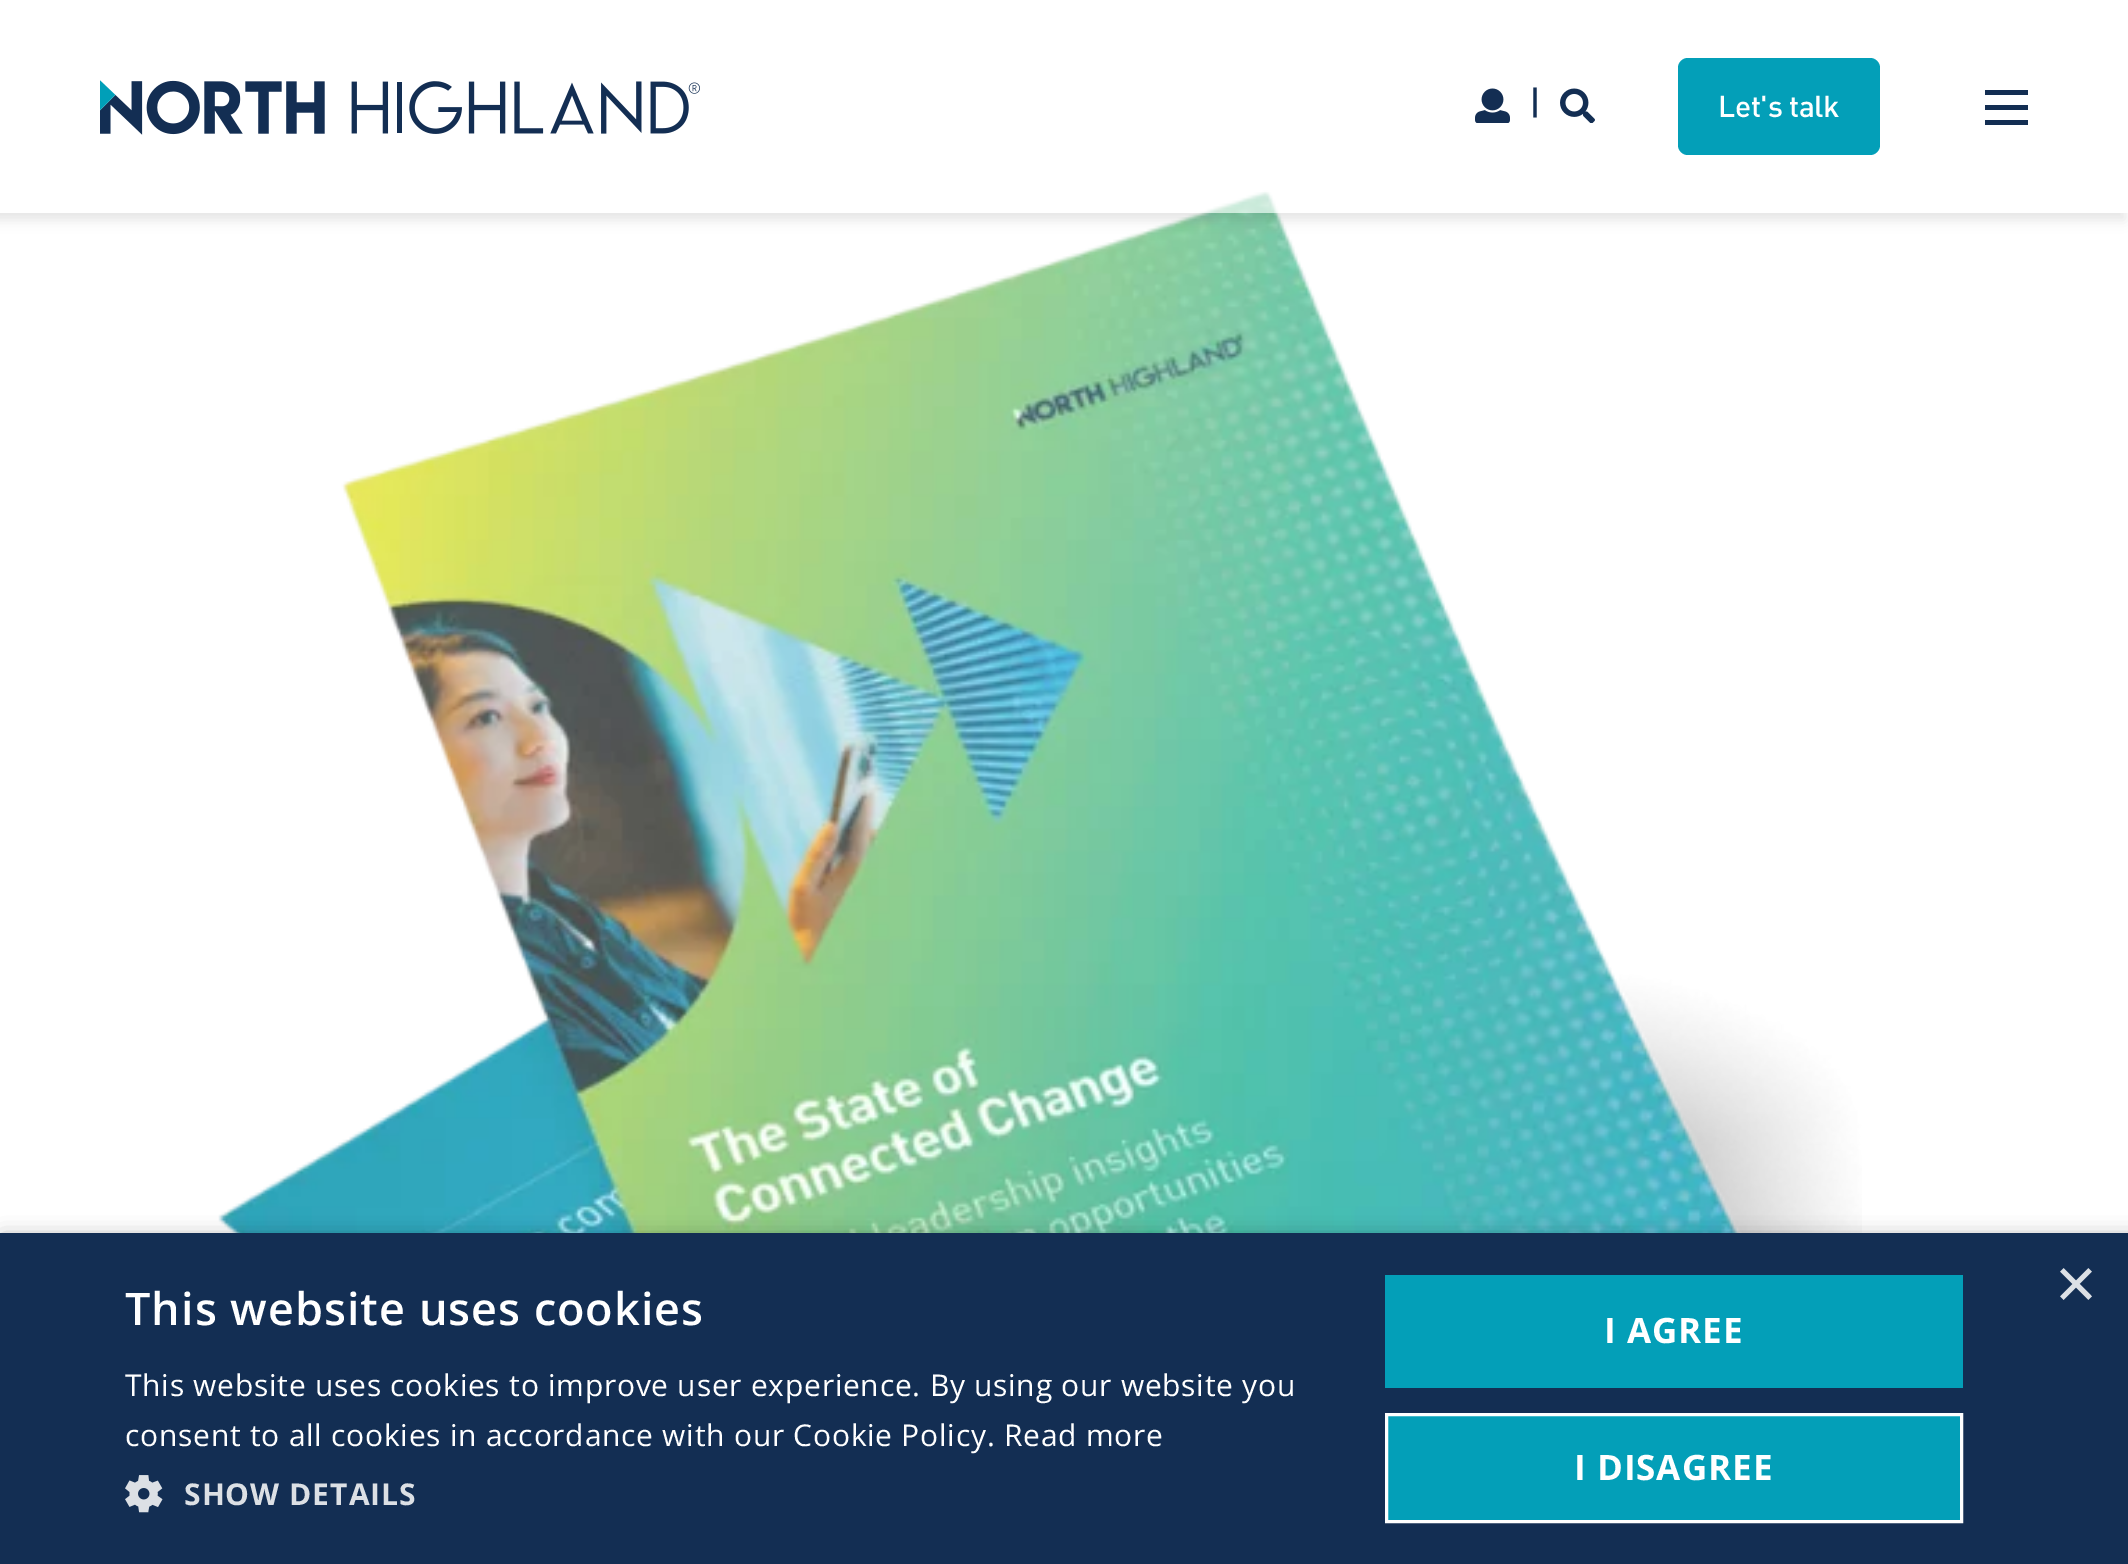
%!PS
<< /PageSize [2128 1564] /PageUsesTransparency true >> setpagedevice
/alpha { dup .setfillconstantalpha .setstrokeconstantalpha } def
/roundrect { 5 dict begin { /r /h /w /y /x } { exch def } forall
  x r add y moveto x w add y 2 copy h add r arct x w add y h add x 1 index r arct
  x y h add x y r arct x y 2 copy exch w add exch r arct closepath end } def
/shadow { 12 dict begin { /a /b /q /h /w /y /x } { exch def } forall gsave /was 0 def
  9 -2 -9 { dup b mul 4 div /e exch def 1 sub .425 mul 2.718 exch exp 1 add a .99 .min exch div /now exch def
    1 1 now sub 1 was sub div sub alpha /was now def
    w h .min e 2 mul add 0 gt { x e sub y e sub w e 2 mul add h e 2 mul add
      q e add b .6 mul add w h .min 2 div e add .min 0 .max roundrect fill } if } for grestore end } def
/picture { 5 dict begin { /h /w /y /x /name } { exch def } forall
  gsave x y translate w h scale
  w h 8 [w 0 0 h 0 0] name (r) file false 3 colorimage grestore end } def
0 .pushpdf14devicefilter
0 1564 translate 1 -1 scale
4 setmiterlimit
1 setgray
0 0 2128 1564 rectfill
(img4.rgb) 218 190 1644 1043 picture
gsave
newpath 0 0 moveto 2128 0 lineto 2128 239 lineto 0 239 lineto closepath 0 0 moveto 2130 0 lineto 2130 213 lineto 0 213 lineto closepath eoclip newpath
0 setgray
-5 8 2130 212 0 6 0.1 shadow
grestore
0.6 alpha
0 190 2127 23 rectfill
1 alpha
(img1.rgb) 100 80 600 55 picture
(img2.rgb) 1475 88 35 35 picture
/DIN-Medium [35 0 0 -35 0 0] selectfont
0.075 0.18 0.325 setrgbcolor
1529 115 moveto (|) show
(img3.rgb) 1560 88 35 35 picture
0.012 0.624 0.722 setrgbcolor
1678 58 202 97 10 roundrect fill
/DIN-Medium [30 0 0 -30 0 0] selectfont
1 setgray
1718 117 moveto -0.4 0 (Let's talk) ashow
0.075 0.18 0.325 setrgbcolor
1985 90 43 5 rectfill
1985 105 43 5 rectfill
1985 120 43 5 rectfill
0 setgray
3 1238 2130 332 0 10 0.35 shadow
0.075 0.18 0.325 setrgbcolor
0 1233 2128 331 rectfill
/LiberationSans-Regular [72 0 0 -72 0 0] selectfont
0.863 0.878 0.898 setrgbcolor
2055 1308 moveto (×) show
/OpenSans-SemiBold [45 0 0 -45 0 0] selectfont
1 setgray
125 1325 moveto 1 0 (This website uses cookies) ashow
/OpenSans-Regular [30 0 0 -30 0 0] selectfont
125 1396 moveto 0.75 0 (This website uses cookies to improve user experience. By using our website you) ashow
125 1446 moveto 0.75 0 (consent to all cookies in accordance with our Cookie Policy. Read more) ashow
(img5.rgb) 125 1475 38 38 picture
/OpenSans-Bold [30 0 0 -30 0 0] selectfont
0.863 0.878 0.898 setrgbcolor
184 1505 moveto 1 0 (SHOW DETAILS) ashow
0.012 0.624 0.722 setrgbcolor
1385 1275 578 113 rectfill
/OpenSans-Bold [35 0 0 -35 0 0] selectfont
1 setgray
1604 1343 moveto 1 0 (I AGREE) ashow
0.012 0.624 0.722 setrgbcolor
newpath 1386.5 1414.5 moveto 1961.5 1414.5 lineto 1961.5 1521.5 lineto 1386.5 1521.5 lineto closepath gsave fill grestore
1 setgray
3 setlinewidth
stroke
1574 1480 moveto 1 0 (I DISAGREE) ashow
.poppdf14devicefilter showpage
